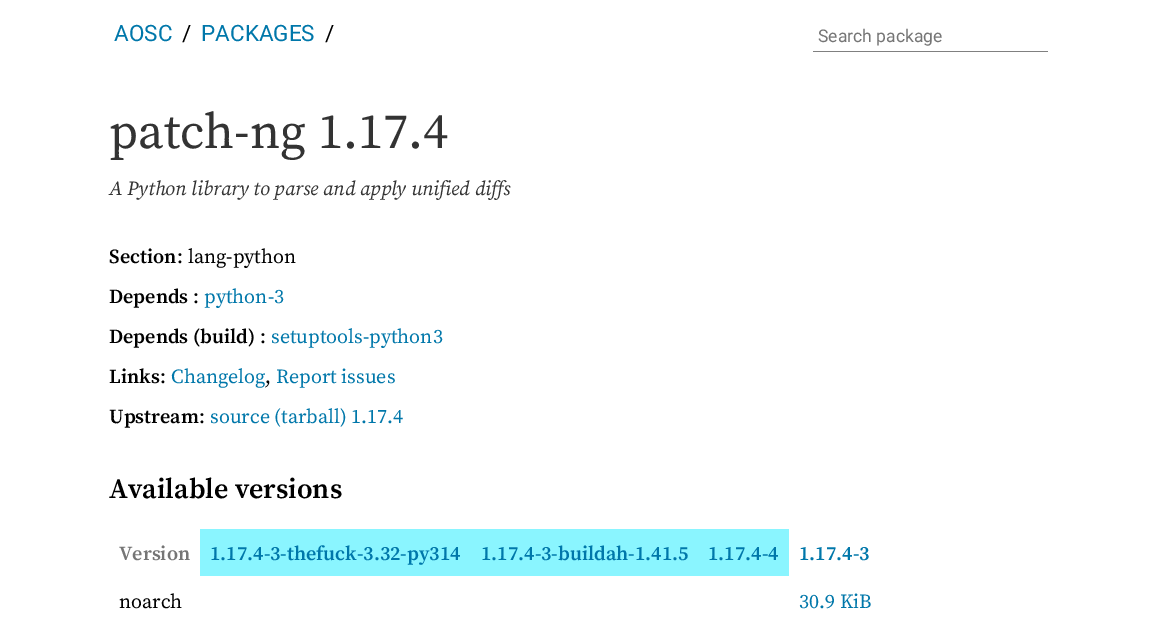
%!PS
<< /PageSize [1156 617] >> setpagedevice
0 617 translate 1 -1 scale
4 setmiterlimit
1 setgray
0 0 1156 617 rectfill
/Roboto-Regular [22.5 0 0 -22.5 0 0] selectfont
0 0.467 0.667 setrgbcolor
114 41 moveto (AOSC) show
0 setgray
182 41 moveto (/) show
0 0.467 0.667 setrgbcolor
201 41 moveto (PACKAGES) show
0 setgray
325 41 moveto (/) show
0.502 setgray
813 51 235 1 rectfill
/Roboto-Regular [17.5 0 0 -17.5 0 0] selectfont
0.459 setgray
818 42 moveto (Search package) show
/SourceSerifPro-Regular [50 0 0 -50 0 0] selectfont
0.2 setgray
109 148 moveto (patch-ng 1.17.4) show
/SourceSerifPro-Italic [20 0 0 -20 0 0] selectfont
109 195 moveto (A Python library to parse and apply unified diffs) show
/SourceSerifPro-SemiBold [20 0 0 -20 0 0] selectfont
0 setgray
109 263 moveto (Section) show
/SourceSerifPro-Regular [20 0 0 -20 0 0] selectfont
177 263 moveto (: lang-python) show
/SourceSerifPro-SemiBold [20 0 0 -20 0 0] selectfont
109 303 moveto (Depends) show
/SourceSerifPro-Regular [20 0 0 -20 0 0] selectfont
193 303 moveto (:) show
0 0.467 0.667 setrgbcolor
204 303 moveto (python-3) show
/SourceSerifPro-SemiBold [20 0 0 -20 0 0] selectfont
0 setgray
109 343 moveto (Depends \(build\)) show
/SourceSerifPro-Regular [20 0 0 -20 0 0] selectfont
260 343 moveto (:) show
0 0.467 0.667 setrgbcolor
271 343 moveto (setuptools-python3) show
/SourceSerifPro-SemiBold [20 0 0 -20 0 0] selectfont
0 setgray
109 383 moveto (Links) show
/SourceSerifPro-Regular [20 0 0 -20 0 0] selectfont
160 383 moveto (:) show
0 0.467 0.667 setrgbcolor
171 383 moveto (Changelog) show
0 setgray
265 383 moveto (,) show
0 0.467 0.667 setrgbcolor
276 383 moveto (Report issues) show
/SourceSerifPro-SemiBold [20 0 0 -20 0 0] selectfont
0 setgray
109 423 moveto (Upstream) show
/SourceSerifPro-Regular [20 0 0 -20 0 0] selectfont
199 423 moveto (:) show
0 0.467 0.667 setrgbcolor
210 423 moveto (source \(tarball\) 1.17.4) show
/SourceSerifPro-SemiBold [28 0 0 -28 0 0] selectfont
0 setgray
109 498 moveto (Available versions) show
/SourceSerifPro-SemiBold [20 0 0 -20 0 0] selectfont
0.459 setgray
119 560 moveto (Version) show
0.541 0.961 1 setrgbcolor
200 529 589 47 rectfill
0 0.467 0.667 setrgbcolor
210 560 moveto (1.17.4-3-thefuck-3.32-py314) show
481 560 moveto (1.17.4-3-buildah-1.41.5) show
708 560 moveto (1.17.4-4) show
799 560 moveto (1.17.4-3) show
/SourceSerifPro-Regular [20 0 0 -20 0 0] selectfont
0 setgray
119 608 moveto (noarch) show
0 0.467 0.667 setrgbcolor
799 608 moveto (30.9 KiB) show
showpage
